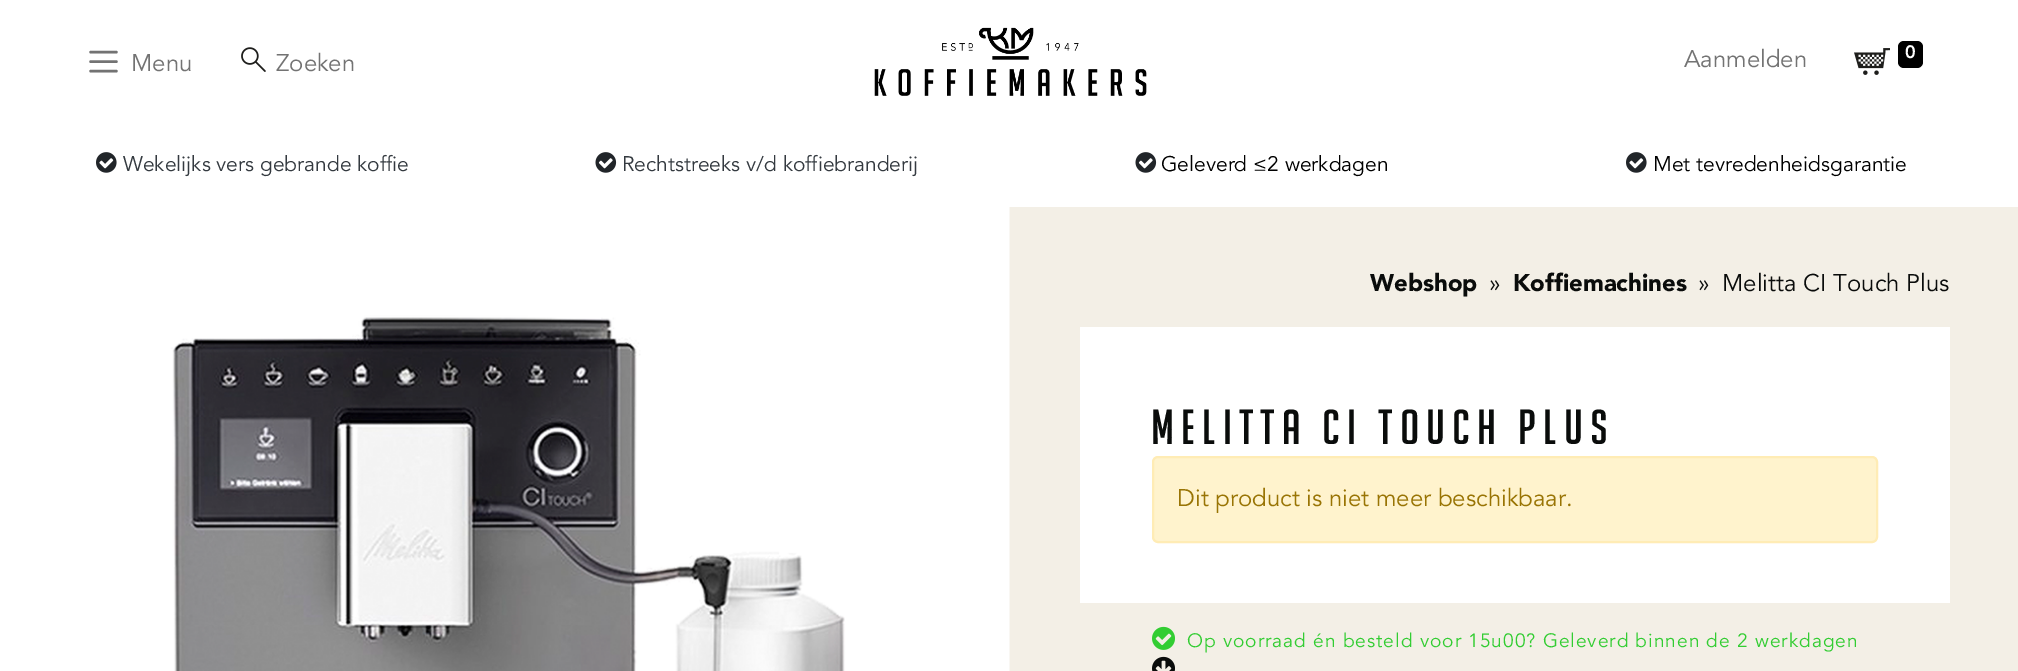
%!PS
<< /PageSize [2018 671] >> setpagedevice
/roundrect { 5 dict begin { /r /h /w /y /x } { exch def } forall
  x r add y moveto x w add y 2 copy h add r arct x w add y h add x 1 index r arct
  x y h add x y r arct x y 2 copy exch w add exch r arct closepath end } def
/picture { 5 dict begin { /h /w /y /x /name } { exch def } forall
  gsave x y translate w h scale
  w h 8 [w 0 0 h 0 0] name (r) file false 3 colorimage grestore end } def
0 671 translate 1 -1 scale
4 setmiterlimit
0.953 0.937 0.902 setrgbcolor
0 0 2018 671 rectfill
1 setgray
0 0 2018 207 rectfill
0.451 setgray
2.4 setlinewidth
1 setlinecap
newpath 90.5 52 moveto 116.5 52 lineto 90.5 61.5 moveto 116.5 61.5 lineto 90.5 71 moveto 116.5 71 lineto stroke
/Avenir-Regular [24 0 0 -24 0 0] selectfont
131 71 moveto (Menu) show
(img1.rgb) 241 47 25 25 picture
276 71 moveto (Zoeken) show
(img2.rgb) 874 27 273 69 picture
1684 67 moveto (Aanmelden) show
(img3.rgb) 1854 48 36 27 picture
0 setgray
1898 41 25 27 6 roundrect fill
/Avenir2-Black [18 0 0 -18 0 0] selectfont
1 setgray
1905 58 moveto (0) show
(img4.rgb) 96 152 21 21 picture
/Avenir-Regular [21 0 0 -21 0 0] selectfont
0.204 0.227 0.251 setrgbcolor
123 171 moveto (Wekelijks vers gebrande koffie) show
(img5.rgb) 595 152 22 21 picture
622 171 moveto (Rechtstreeks v/d koffiebranderij) show
(img5.rgb) 1135 152 22 21 picture
0 setgray
1161 171 moveto (Geleverd ≤2 werkdagen) show
(img4.rgb) 1626 152 21 21 picture
1653 171 moveto (Met tevredenheidsgarantie) show
(img6.rgb) 0 207 1010 464 picture
/Avenir-Black [24 0 0 -24 0 0] selectfont
0.039 0.047 0.043 setrgbcolor
1370 291 moveto (Webshop) show
/Avenir-Regular [24 0 0 -24 0 0] selectfont
1489 291 moveto (») show
/Avenir-Black [24 0 0 -24 0 0] selectfont
1513 291 moveto (Koffiemachines) show
/Avenir-Regular [24 0 0 -24 0 0] selectfont
1698 291 moveto (») show
1722 291 moveto (Melitta CI Touch Plus) show
1 setgray
1080 327 870 276 rectfill
/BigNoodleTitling-Regular [48 0 0 -48 0 0] selectfont
0.039 0.047 0.043 setrgbcolor
1151 444 moveto 7.2 0 (MELITTA CI TOUCH PLUS) ashow
1 0.953 0.804 setrgbcolor
1153 457 724 85 5 roundrect gsave fill grestore
1 0.925 0.71 setrgbcolor
2 setlinewidth
0 setlinecap
stroke
/Avenir-Regular [24 0 0 -24 0 0] selectfont
0.6 0.455 0.016 setrgbcolor
1177 506 moveto (Dit product is niet meer beschikbaar.) show
(img7.rgb) 1152 626 23 24 picture
/Avenir-Regular [19.2 0 0 -19.2 0 0] selectfont
0.196 0.804 0.196 setrgbcolor
1187 647 moveto 0.95 0 (Op voorraad én besteld voor 15u00? Geleverd binnen de 2 werkdagen) ashow
(img8.rgb) 1152 656 23 15 picture
showpage
